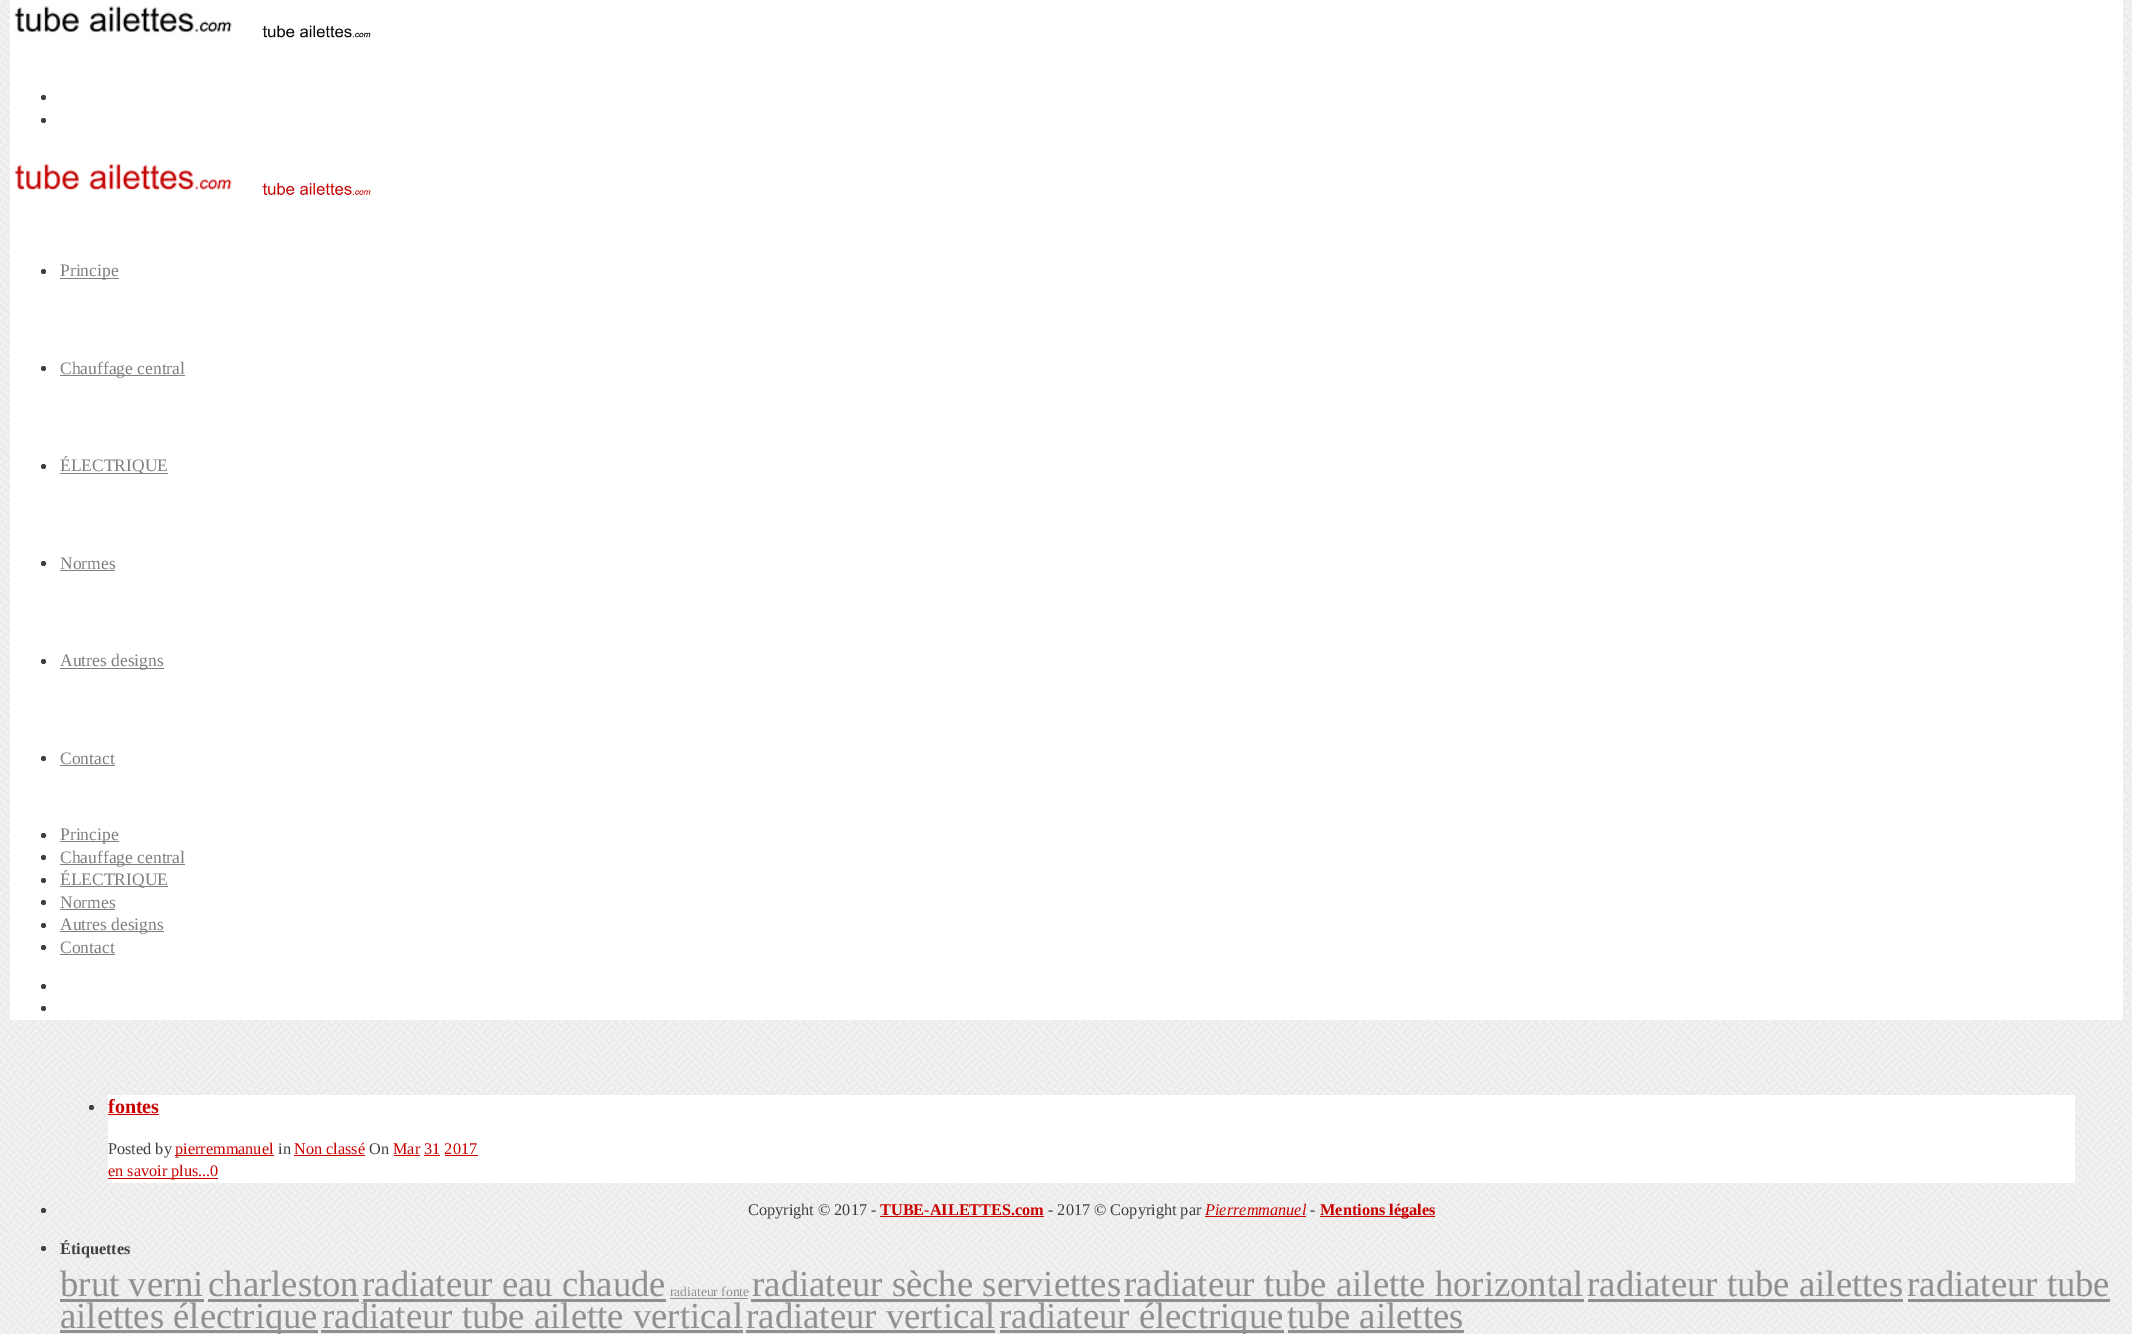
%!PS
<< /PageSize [2132 1334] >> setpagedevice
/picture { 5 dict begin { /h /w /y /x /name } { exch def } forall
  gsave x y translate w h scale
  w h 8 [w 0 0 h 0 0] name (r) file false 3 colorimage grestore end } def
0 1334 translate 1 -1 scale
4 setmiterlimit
1 setgray
0 0 2132 1334 rectfill
(img1.rgb) 0 0 2132 1334 picture
10 0 2113 1020 rectfill
(img2.rgb) 14 6 218 32 picture
(img3.rgb) 262 25 109 13 picture
0.251 setgray
newpath 43.5 97.5 2.5 0 360 arc closepath fill
newpath 43.5 120.5 2.5 0 360 arc closepath fill
(img4.rgb) 14 163 218 28 picture
(img5.rgb) 261 182 110 14 picture
newpath 43.5 271.5 2.5 0 360 arc closepath fill
0.502 setgray
60 278 59 1 rectfill
/LiberationSerif-Regular [17.5 0 0 -17.5 0 0] selectfont
60 276 moveto (Principe) show
0.251 setgray
newpath 43.5 368.5 2.5 0 360 arc closepath fill
0.502 setgray
60 375 125 1 rectfill
60 374 moveto (Chauffage central) show
0.251 setgray
newpath 43.5 466.5 2.5 0 360 arc closepath fill
0.502 setgray
60 473 108 1 rectfill
60 471 moveto (ÉLECTRIQUE) show
0.251 setgray
newpath 43.5 563.5 2.5 0 360 arc closepath fill
0.502 setgray
60 569 moveto (Normes) show
60 570 55 1 rectfill
0.251 setgray
newpath 43.5 661.5 2.5 0 360 arc closepath fill
0.502 setgray
60 668 104 1 rectfill
60 666 moveto (Autres designs) show
0.251 setgray
newpath 43.5 758.5 2.5 0 360 arc closepath fill
0.502 setgray
60 764 moveto (Contact) show
60 765 55 1 rectfill
0.251 setgray
newpath 43.5 835.5 2.5 0 360 arc closepath fill
0.502 setgray
60 841 59 1 rectfill
60 840 moveto (Principe) show
0.251 setgray
newpath 43.5 857.5 2.5 0 360 arc closepath fill
0.502 setgray
60 864 125 1 rectfill
60 863 moveto (Chauffage central) show
0.251 setgray
newpath 43.5 880.5 2.5 0 360 arc closepath fill
0.502 setgray
60 886 108 1 rectfill
60 885 moveto (ÉLECTRIQUE) show
0.251 setgray
newpath 43.5 902.5 2.5 0 360 arc closepath fill
0.502 setgray
60 908 moveto (Normes) show
60 909 55 1 rectfill
0.251 setgray
newpath 43.5 925.5 2.5 0 360 arc closepath fill
0.502 setgray
60 931 104 1 rectfill
60 930 moveto (Autres designs) show
0.251 setgray
newpath 43.5 947.5 2.5 0 360 arc closepath fill
0.502 setgray
60 953 moveto (Contact) show
60 954 55 1 rectfill
0.251 setgray
newpath 43.5 986.5 2.5 0 360 arc closepath fill
newpath 43.5 1008.5 2.5 0 360 arc closepath fill
newpath 91.5 1107.5 2.5 0 360 arc closepath fill
1 setgray
108 1095 1967 88 rectfill
/LiberationSerif-Bold [20 0 0 -20 0 0] selectfont
0.792 0 0 setrgbcolor
108 1113 moveto (fontes) show
108 1114 51 1 rectfill
/LiberationSerif-Regular [16.25 0 0 -16.25 0 0] selectfont
0.251 setgray
108 1154 moveto (Posted by) show
0.792 0 0 setrgbcolor
175 1155 99 1 rectfill
175 1154 moveto (pierremmanuel) show
0.251 setgray
278 1154 moveto (in) show
0.792 0 0 setrgbcolor
294 1154 moveto (Non classé) show
294 1155 71 1 rectfill
0.251 setgray
369 1154 moveto (On) show
0.792 0 0 setrgbcolor
393 1154 moveto (Mar 31 2017) show
394 1155 26 1 rectfill
424 1155 16 1 rectfill
445 1155 33 1 rectfill
108 1178 110 1 rectfill
108 1176 moveto (en savoir plus...0) show
0.251 setgray
newpath 43.5 1210.5 2.5 0 360 arc closepath fill
748 1215 moveto (Copyright © 2017 -) show
/LiberationSerif-Bold [16.25 0 0 -16.25 0 0] selectfont
0.792 0 0 setrgbcolor
880 1215 moveto (TUBE-AILETTES.com) show
880 1216 164 1 rectfill
/LiberationSerif-Regular [16.25 0 0 -16.25 0 0] selectfont
0.251 setgray
1048 1215 moveto (- 2017 © Copyright par) show
/LiberationSerif-Italic [16.25 0 0 -16.25 0 0] selectfont
0.792 0 0 setrgbcolor
1205 1215 moveto (Pierremmanuel) show
1205 1216 101 1 rectfill
/LiberationSerif-Regular [16.25 0 0 -16.25 0 0] selectfont
0.251 setgray
1310 1215 moveto (-) show
0.792 0 0 setrgbcolor
1320 1216 115 1 rectfill
/LiberationSerif-Bold [16.25 0 0 -16.25 0 0] selectfont
1320 1215 moveto (Mentions légales) show
0.251 setgray
newpath 43.5 1248.5 2.5 0 360 arc closepath fill
60 1254 moveto (Étiquettes) show
/LiberationSerif-Regular [36.7 0 0 -36.7 0 0] selectfont
0.565 setgray
60 1296 moveto (brut verni) show
60 1299 144 3 rectfill
208 1296 moveto (charleston) show
208 1299 151 3 rectfill
362 1296 moveto (radiateur eau chaude) show
363 1299 303 3 rectfill
/LiberationSerif-Regular [13.5 0 0 -13.5 0 0] selectfont
670 1296 moveto (radiateur fonte) show
670 1298 78 1 rectfill
/LiberationSerif-Regular [36.7 0 0 -36.7 0 0] selectfont
752 1296 moveto (radiateur sèche serviettes) show
751 1299 369 3 rectfill
1124 1296 moveto (radiateur tube ailette horizontal) show
1124 1299 460 3 rectfill
1587 1296 moveto (radiateur tube ailettes) show
1588 1299 315 3 rectfill
1907 1296 moveto (radiateur tube) show
1908 1299 202 3 rectfill
60 1330 258 3 rectfill
60 1328 moveto (ailettes électrique) show
322 1328 moveto (radiateur tube ailette vertical) show
321 1330 422 3 rectfill
746 1328 moveto (radiateur vertical) show
746 1330 249 3 rectfill
1000 1330 284 3 rectfill
999 1328 moveto (radiateur électrique) show
1287 1328 moveto (tube ailettes) show
1288 1330 176 3 rectfill
showpage
